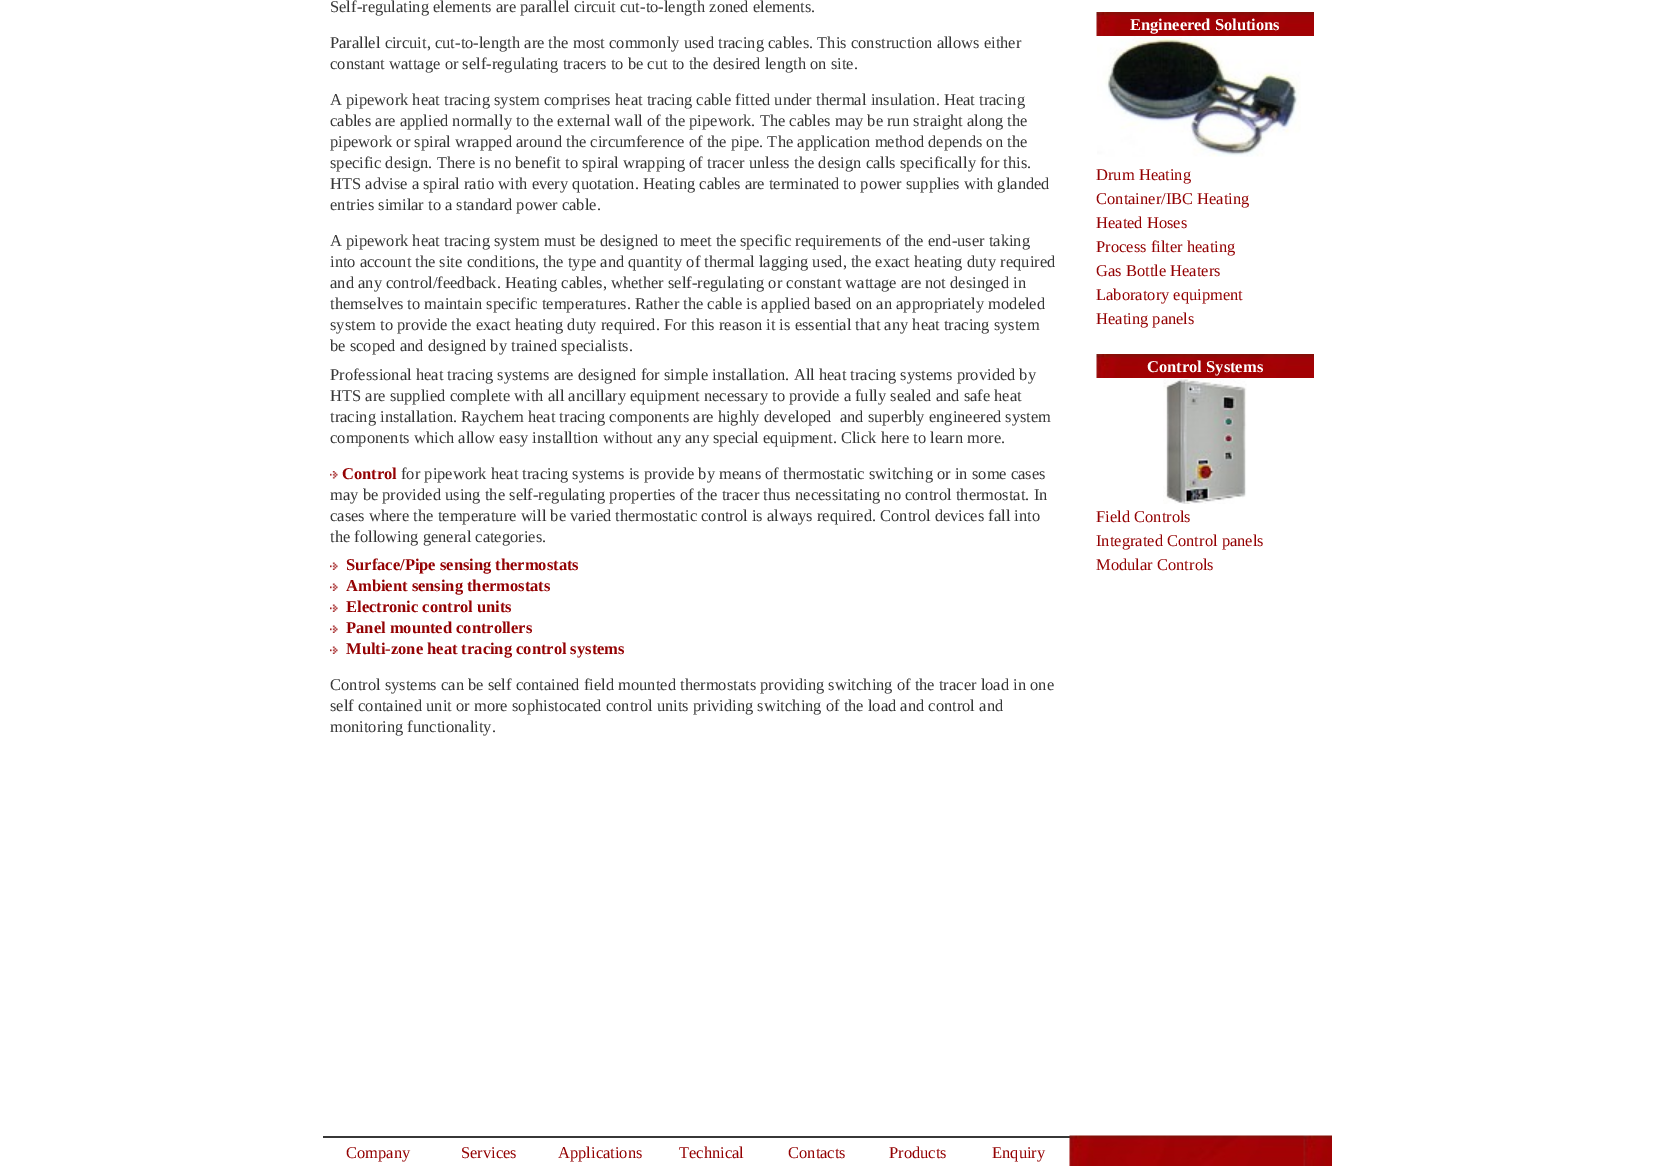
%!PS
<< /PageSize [1654 1166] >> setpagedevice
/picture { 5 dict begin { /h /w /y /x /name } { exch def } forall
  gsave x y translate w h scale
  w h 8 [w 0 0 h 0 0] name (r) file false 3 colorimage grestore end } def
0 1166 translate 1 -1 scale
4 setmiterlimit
1 setgray
0 0 1654 1166 rectfill
/LiberationSerif-Regular [16.5 0 0 -16.5 0 0] selectfont
0.216 setgray
330 12 moveto (Self-regulating elements are parallel circuit cut-to-length zoned elements.) show
330 48 moveto (Parallel circuit, cut-to-length are the most commonly used tracing cables. This construction allows either) show
330 69 moveto (constant wattage or self-regulating tracers to be cut to the desired length on site.) show
330 105 moveto (A pipework heat tracing system comprises heat tracing cable fitted under thermal insulation. Heat tracing) show
330 126 moveto (cables are applied normally to the external wall of the pipework. The cables may be run straight along the) show
330 147 moveto (pipework or spiral wrapped around the circumference of the pipe. The application method depends on the) show
330 168 moveto (specific design. There is no benefit to spiral wrapping of tracer unless the design calls specifically for this.) show
330 189 moveto (HTS advise a spiral ratio with every quotation. Heating cables are terminated to power supplies with glanded) show
330 210 moveto (entries similar to a standard power cable.) show
330 246 moveto (A pipework heat tracing system must be designed to meet the specific requirements of the end-user taking) show
330 267 moveto (into account the site conditions, the type and quantity of thermal lagging used, the exact heating duty required) show
330 288 moveto (and any control/feedback. Heating cables, whether self-regulating or constant wattage are not desinged in) show
330 309 moveto (themselves to maintain specific temperatures. Rather the cable is applied based on an appropriately modeled) show
330 330 moveto (system to provide the exact heating duty required. For this reason it is essential that any heat tracing system) show
330 351 moveto (be scoped and designed by trained specialists.) show
330 380 moveto (Professional heat tracing systems are designed for simple installation. All heat tracing systems provided by) show
330 401 moveto (HTS are supplied complete with all ancillary equipment necessary to provide a fully sealed and safe heat) show
330 422 moveto (tracing installation. Raychem heat tracing components are highly developed  and superbly engineered system) show
330 443 moveto (components which allow easy installtion without any any special equipment. Click here to learn more.) show
(img1.rgb) 330 471 8 8 picture
/LiberationSerif-Bold [16.5 0 0 -16.5 0 0] selectfont
0.58 0.008 0.012 setrgbcolor
342 479 moveto (Control) show
/LiberationSerif-Regular [16.5 0 0 -16.5 0 0] selectfont
0.216 setgray
401 479 moveto (for pipework heat tracing systems is provide by means of thermostatic switching or in some cases) show
330 500 moveto (may be provided using the self-regulating properties of the tracer thus necessitating no control thermostat. In) show
330 521 moveto (cases where the temperature will be varied thermostatic control is always required. Control devices fall into) show
330 542 moveto (the following general categories.) show
(img2.rgb) 330 562 8 8 picture
/LiberationSerif-Bold [16.5 0 0 -16.5 0 0] selectfont
0.58 0.008 0.012 setrgbcolor
346 570 moveto (Surface/Pipe sensing thermostats) show
(img2.rgb) 330 583 8 8 picture
346 591 moveto (Ambient sensing thermostats) show
(img2.rgb) 330 604 8 8 picture
346 612 moveto (Electronic control units) show
(img2.rgb) 330 625 8 8 picture
346 633 moveto (Panel mounted controllers) show
(img2.rgb) 330 646 8 8 picture
346 654 moveto (Multi-zone heat tracing control systems) show
/LiberationSerif-Regular [16.5 0 0 -16.5 0 0] selectfont
0.216 setgray
330 690 moveto (Control systems can be self contained field mounted thermostats providing switching of the tracer load in one) show
330 711 moveto (self contained unit or more sophistocated control units prividing switching of the load and control and) show
330 732 moveto (monitoring functionality.) show
(img3.rgb) 1096 12 218 24 picture
/LiberationSerif-Bold [16.5 0 0 -16.5 0 0] selectfont
1 setgray
1130 30 moveto (Engineered Solutions) show
(img4.rgb) 1097 36 204 121 picture
/LiberationSerif-Regular [16.5 0 0 -16.5 0 0] selectfont
0.58 0.008 0.012 setrgbcolor
1096 180 moveto (Drum Heating) show
1096 204 moveto (Container/IBC Heating) show
1096 228 moveto (Heated Hoses) show
1096 252 moveto (Process filter heating) show
1096 276 moveto (Gas Bottle Heaters) show
1096 300 moveto (Laboratory equipment) show
1096 324 moveto (Heating panels) show
(img3.rgb) 1096 354 218 24 picture
/LiberationSerif-Bold [16.5 0 0 -16.5 0 0] selectfont
1 setgray
1147 372 moveto (Control Systems) show
(img5.rgb) 1163 378 84 126 picture
/LiberationSerif-Regular [16.5 0 0 -16.5 0 0] selectfont
0.58 0.008 0.012 setrgbcolor
1096 522 moveto (Field Controls) show
1096 546 moveto (Integrated Control panels) show
1096 570 moveto (Modular Controls) show
0.216 setgray
323 1136 747 2 rectfill
0.58 0.008 0.012 setrgbcolor
346 1158 moveto (Company) show
461 1158 moveto (Services) show
558 1158 moveto (Applications) show
679 1158 moveto (Technical) show
788 1158 moveto (Contacts) show
889 1158 moveto (Products) show
992 1158 moveto (Enquiry) show
(img6.rgb) 1069 1135 263 31 picture
showpage
